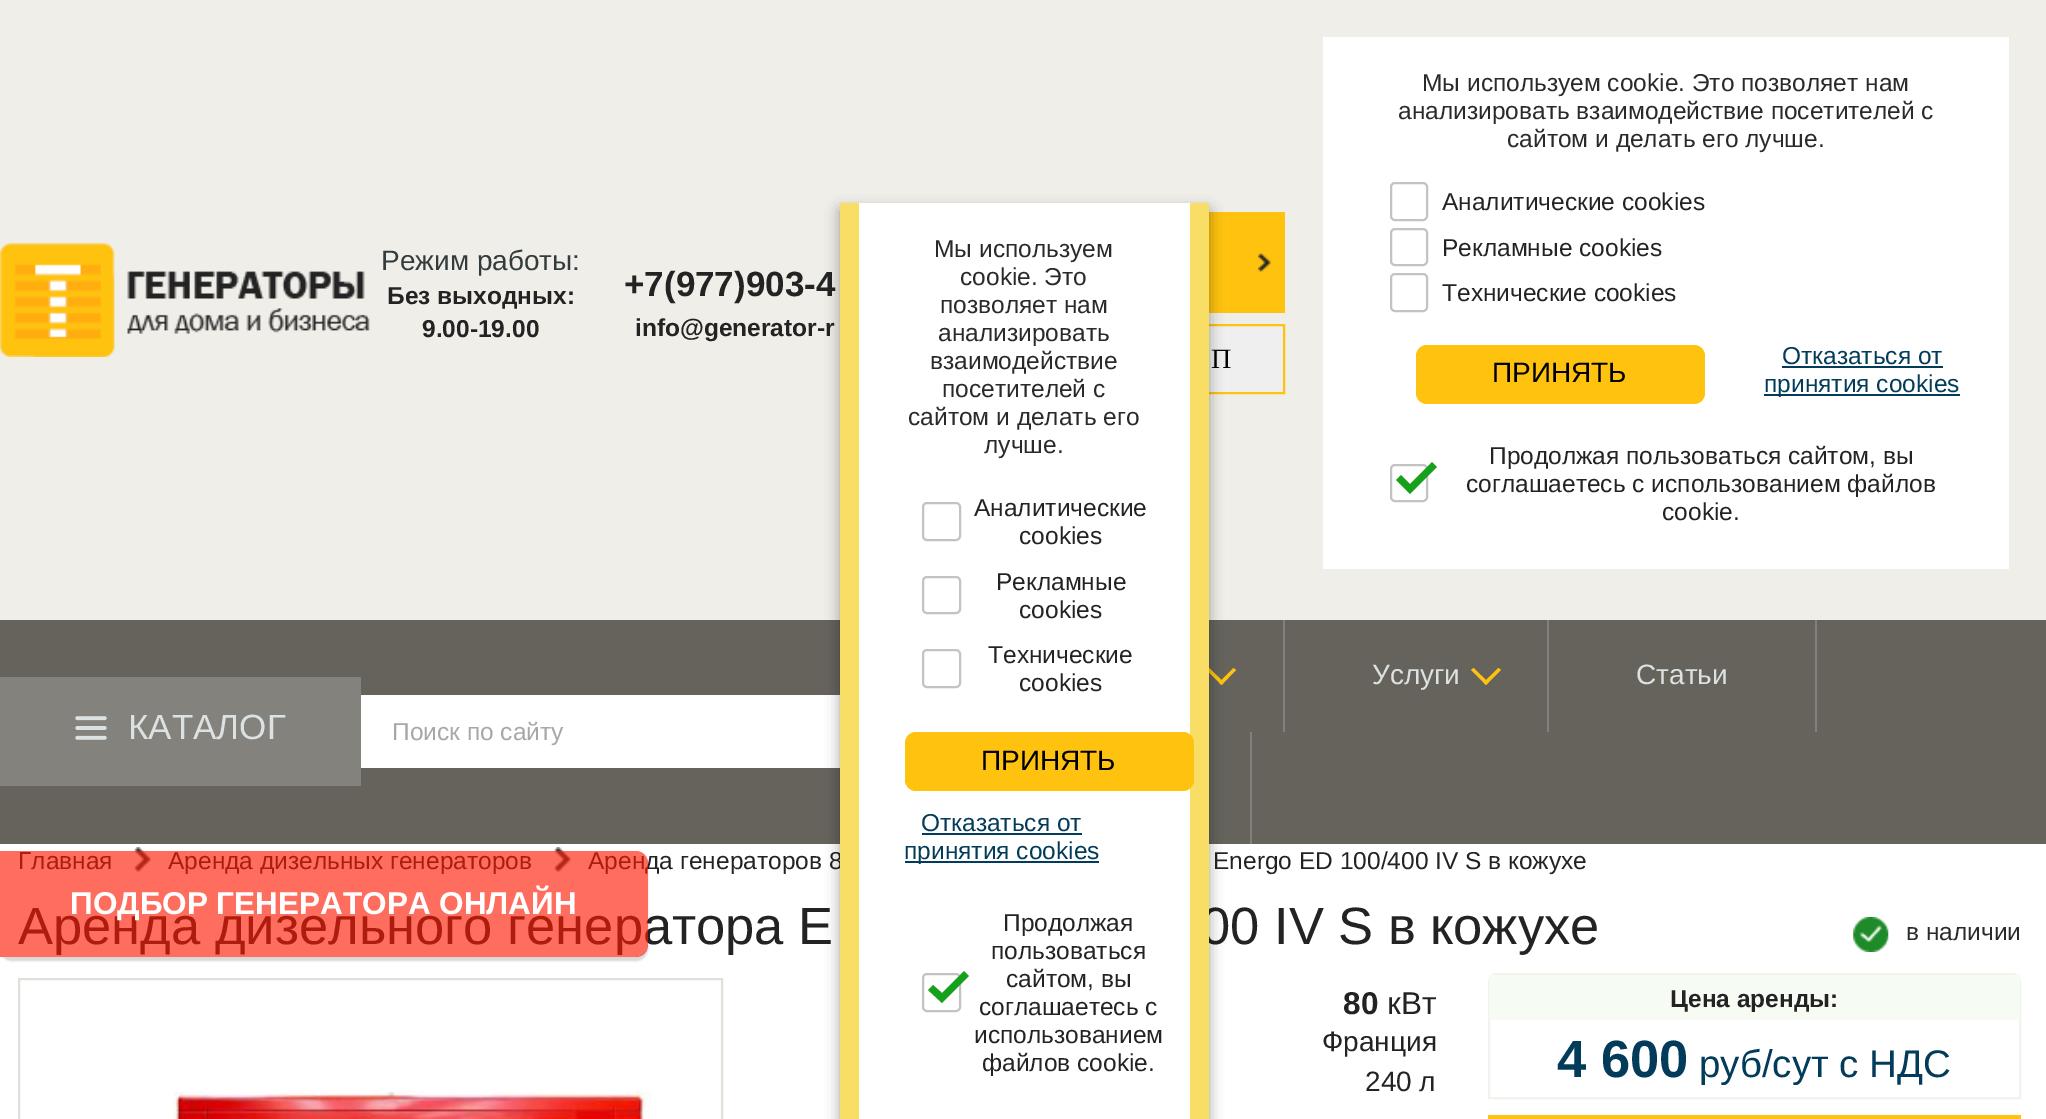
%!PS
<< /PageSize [2046 1119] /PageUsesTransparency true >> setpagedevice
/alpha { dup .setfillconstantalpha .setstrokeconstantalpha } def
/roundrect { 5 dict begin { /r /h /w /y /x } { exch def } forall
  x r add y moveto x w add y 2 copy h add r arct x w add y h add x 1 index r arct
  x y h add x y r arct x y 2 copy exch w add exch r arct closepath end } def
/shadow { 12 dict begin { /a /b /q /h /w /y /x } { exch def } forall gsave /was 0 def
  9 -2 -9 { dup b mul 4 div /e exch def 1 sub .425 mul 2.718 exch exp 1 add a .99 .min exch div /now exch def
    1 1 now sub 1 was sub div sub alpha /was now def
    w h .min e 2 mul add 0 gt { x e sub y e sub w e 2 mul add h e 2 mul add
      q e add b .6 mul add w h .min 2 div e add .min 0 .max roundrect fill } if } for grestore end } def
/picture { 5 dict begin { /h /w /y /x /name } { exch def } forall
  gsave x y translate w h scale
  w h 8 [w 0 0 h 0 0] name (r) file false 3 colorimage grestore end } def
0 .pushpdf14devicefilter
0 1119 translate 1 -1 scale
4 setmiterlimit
1 setgray
0 0 2046 1119 rectfill
0.941 0.933 0.914 setrgbcolor
0 0 2046 620 rectfill
(img1.rgb) 0 243 370 114 picture
/LiberationSans-Regular [28 0 0 -28 0 0] selectfont
0.2 0.235 0.239 setrgbcolor
381 270 moveto (Режим работы:) show
/LiberationSans-Bold [24.5 0 0 -24.5 0 0] selectfont
0.137 setgray
387 304 moveto (Без выходных:) show
422 337 moveto (9.00-19.00) show
/LiberationSans-Bold [35 0 0 -35 0 0] selectfont
624 296 moveto (+7\(977\)903-4) show
/LiberationSans-Bold [24.5 0 0 -24.5 0 0] selectfont
635 336 moveto (info@generator-r) show
1 setgray
1323 37 686 532 rectfill
/LiberationSans-Regular [24.5 0 0 -24.5 0 0] selectfont
0.157 0.165 0.169 setrgbcolor
1422 91 moveto (Мы используем cookie. Это позволяет нам) show
1398 119 moveto (анализировать взаимодействие посетителей с) show
1507 147 moveto (сайтом и делать его лучше.) show
0.765 setgray
2 setlinewidth
1391 183 36 37 4 roundrect stroke
0.137 setgray
1442 210 moveto (Аналитические cookies) show
0.765 setgray
1391 229 36 36 4 roundrect stroke
0.137 setgray
1442 256 moveto (Рекламные cookies) show
0.765 setgray
1391 274 36 37 4 roundrect stroke
0.137 setgray
1442 301 moveto (Технические cookies) show
1 0.761 0.059 setrgbcolor
1416 345 289 59 11 roundrect fill
/LiberationSans-Regular [28 0 0 -28 0 0] selectfont
0 setgray
1492 382 moveto (ПРИНЯТЬ) show
/LiberationSans-Regular [24.5 0 0 -24.5 0 0] selectfont
0.008 0.235 0.353 setrgbcolor
1782 364 moveto (Отказаться от) show
1782 366 161 2 rectfill
1764 394 196 2 rectfill
1764 392 moveto (принятия cookies) show
0.137 setgray
1489 464 moveto (Продолжая пользоваться сайтом, вы) show
0.765 setgray
1391 465 36 36 4 roundrect stroke
0.086 0.631 0.11 setrgbcolor
newpath 1401 475 moveto 1396 480 lineto 1410 494 lineto 1437 467 lineto 1432 462 lineto 1410 484 lineto closepath fill
0.137 setgray
1466 492 moveto (соглашаетесь с использованием файлов) show
1662 520 moveto (cookie.) show
1 0.761 0.059 setrgbcolor
1209 212 76 101 rectfill
(img2.rgb) 1258 253 13 19 picture
0.937 setgray
1209 326 74 66 rectfill
1 0.761 0.059 setrgbcolor
1013 325 271 68 rectstroke
/LiberationSerif-Regular [28 0 0 -28 0 0] selectfont
0 setgray
1211 368 moveto (П) show
0.396 0.388 0.361 setrgbcolor
0 620 2046 224 rectfill
1 0.761 0.059 setrgbcolor
newpath 1236 670 moveto 1221.5 685 lineto 1219 682.5 lineto 1233.5 668 lineto closepath fill
newpath 1224 682.5 moveto 1221.5 685 lineto 1206.5 670 lineto 1209 668 lineto closepath fill
0.506 0.502 0.482 setrgbcolor
1283 620 2 112 rectfill
1547 620 2 112 rectfill
/LiberationSans-Regular [28 0 0 -28 0 0] selectfont
0.863 0.882 0.886 setrgbcolor
1372 684 moveto (Услуги) show
1 0.761 0.059 setrgbcolor
newpath 1501 670 moveto 1486 685 lineto 1483.5 682.5 lineto 1498.5 668 lineto closepath fill
newpath 1488.5 682.5 moveto 1486 685 lineto 1471 670 lineto 1473.5 668 lineto closepath fill
0.506 0.502 0.482 setrgbcolor
1815 620 2 112 rectfill
0.863 0.882 0.886 setrgbcolor
1636 684 moveto (Статьи) show
0.506 0.502 0.482 setrgbcolor
1250 732 2 112 rectfill
0.518 0.51 0.49 setrgbcolor
0 677 361 109 rectfill
(img3.rgb) 75 716 32 24 picture
/LiberationSans-Regular [35 0 0 -35 0 0] selectfont
0.863 0.882 0.886 setrgbcolor
128 739 moveto (КАТАЛОГ) show
1 setgray
361 695 479 73 rectfill
/LiberationSans-Regular [24.5 0 0 -24.5 0 0] selectfont
0.655 setgray
392 740 moveto (Поиск по сайту) show
0.137 setgray
18 869 moveto (Главная) show
(img4.rgb) 134 847 17 25 picture
168 869 moveto (Аренда дизельных генераторов) show
(img4.rgb) 554 847 17 25 picture
588 869 moveto (Аренда генераторов 8) show
1213 869 moveto (Energo ED 100/400 IV S в кожухе) show
/LiberationSans-Regular [52.5 0 0 -52.5 0 0] selectfont
18 944 moveto (Аренда дизельного генератора E) show
1201 944 moveto (00 IV S в кожухе) show
0.875 0.882 0.859 setrgbcolor
19 979 703 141 rectstroke
(img5.rgb) 173 1091 479 28 picture
/LiberationSans-Bold [31.5 0 0 -31.5 0 0] selectfont
0.137 setgray
1343 1014 moveto (80) show
/LiberationSans-Regular [31.5 0 0 -31.5 0 0] selectfont
1387 1014 moveto (кВт) show
/LiberationSans-Regular [28 0 0 -28 0 0] selectfont
1322 1051 moveto (Франция) show
1365 1091 moveto (240 л) show
(img6.rgb) 1853 917 36 35 picture
/LiberationSans-Regular [24.5 0 0 -24.5 0 0] selectfont
0.157 0.165 0.169 setrgbcolor
1906 940 moveto (в наличии) show
0.945 0.957 0.925 setrgbcolor
newpath 1497 974 moveto 2012 974 lineto 2016.5 974 2020 977.5 2020 982 curveto 2020 1098 lineto 1489 1098 lineto 1489 982 lineto 1489 977.5 1492.5 974 1497 974 curveto closepath stroke
0.965 0.984 0.953 setrgbcolor
1489 975 531 45 rectfill
/LiberationSans-Bold [24.5 0 0 -24.5 0 0] selectfont
0.137 setgray
1670 1007 moveto (Цена аренды:) show
/LiberationSans-Bold [52.5 0 0 -52.5 0 0] selectfont
0.008 0.235 0.353 setrgbcolor
1557 1077 moveto (4 600) show
/LiberationSans-Regular [38.5 0 0 -38.5 0 0] selectfont
1699 1077 moveto (руб/сут с НДС) show
1 0.761 0.059 setrgbcolor
1488 1115 533 4 rectfill
gsave
newpath 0 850 moveto 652 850 lineto 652 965 lineto 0 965 lineto closepath 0 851 moveto 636 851 lineto 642.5 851 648 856.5 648 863 curveto 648 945 lineto 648 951.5 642.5 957 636 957 curveto 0 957 lineto closepath eoclip newpath
0 setgray
0 854 648 107 12 1 0.15 shadow
grestore
0.63 alpha
1 0.094 0 setrgbcolor
newpath 0 851 moveto 636 851 lineto 642.5 851 648 856.5 648 863 curveto 648 945 lineto 648 951.5 642.5 957 636 957 curveto 0 957 lineto closepath fill
/LiberationSans-Bold [31.5 0 0 -31.5 0 0] selectfont
1 alpha
1 setgray
70 914 moveto (ПОДБОР ГЕНЕРАТОРА ОНЛАЙН) show
0.004 0 0 setrgbcolor
840 210 369 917 0 7 0.36 shadow
0.973 0.871 0.396 setrgbcolor
840 203 369 916 rectfill
1 setgray
859 203 331 916 rectfill
/LiberationSans-Regular [24.5 0 0 -24.5 0 0] selectfont
0.157 0.165 0.169 setrgbcolor
934 257 moveto (Мы используем) show
960 285 moveto (cookie. Это) show
940 313 moveto (позволяет нам) show
938 341 moveto (анализировать) show
930 369 moveto (взаимодействие) show
942 397 moveto (посетителей с) show
908 425 moveto (сайтом и делать его) show
984 453 moveto (лучше.) show
0.765 setgray
923 503 37 37 4 roundrect stroke
0.137 setgray
974 516 moveto (Аналитические) show
1019 544 moveto (cookies) show
0.765 setgray
923 577 37 36 4 roundrect stroke
0.137 setgray
996 590 moveto (Рекламные) show
1019 618 moveto (cookies) show
0.765 setgray
923 650 37 37 4 roundrect stroke
0.137 setgray
988 663 moveto (Технические) show
1019 691 moveto (cookies) show
1 0.761 0.059 setrgbcolor
905 732 289 59 11 roundrect fill
/LiberationSans-Regular [28 0 0 -28 0 0] selectfont
0 setgray
981 770 moveto (ПРИНЯТЬ) show
/LiberationSans-Regular [24.5 0 0 -24.5 0 0] selectfont
0.008 0.235 0.353 setrgbcolor
921 831 moveto (Отказаться от) show
922 833 160 2 rectfill
905 861 194 2 rectfill
904 859 moveto (принятия cookies) show
0.137 setgray
1003 931 moveto (Продолжая) show
991 959 moveto (пользоваться) show
0.765 setgray
923 974 37 37 4 roundrect stroke
0.086 0.631 0.11 setrgbcolor
newpath 933 985 moveto 928 990 lineto 942 1003 lineto 969 976 lineto 964 971 lineto 942 993 lineto closepath fill
0.137 setgray
1006 987 moveto (сайтом, вы) show
979 1015 moveto (соглашаетесь с) show
974 1043 moveto (использованием) show
982 1071 moveto (файлов cookie.) show
.poppdf14devicefilter showpage
